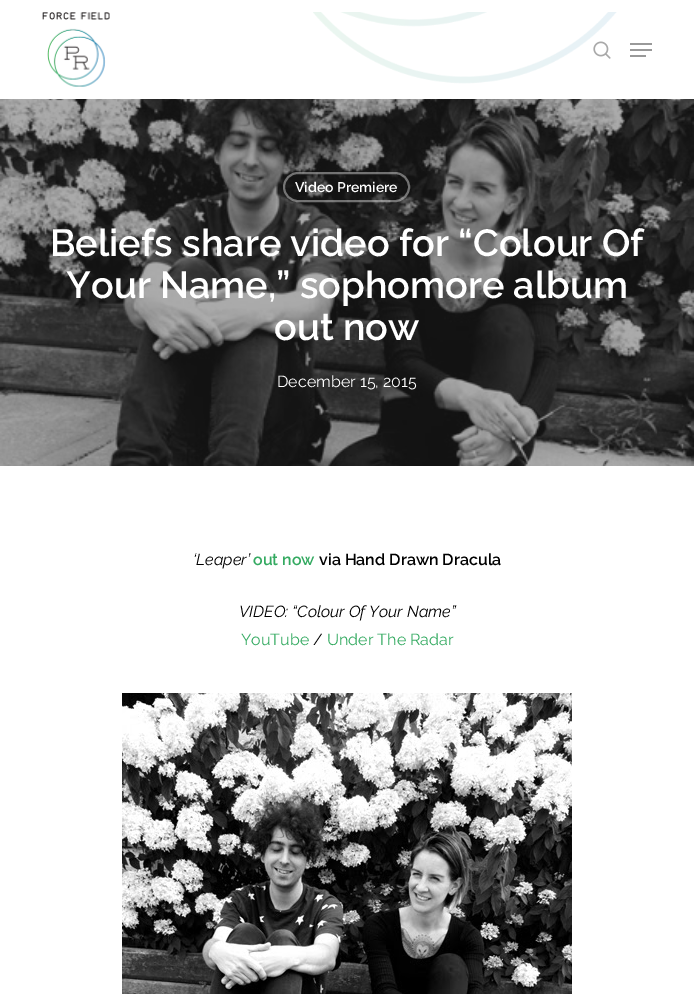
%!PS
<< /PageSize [694 994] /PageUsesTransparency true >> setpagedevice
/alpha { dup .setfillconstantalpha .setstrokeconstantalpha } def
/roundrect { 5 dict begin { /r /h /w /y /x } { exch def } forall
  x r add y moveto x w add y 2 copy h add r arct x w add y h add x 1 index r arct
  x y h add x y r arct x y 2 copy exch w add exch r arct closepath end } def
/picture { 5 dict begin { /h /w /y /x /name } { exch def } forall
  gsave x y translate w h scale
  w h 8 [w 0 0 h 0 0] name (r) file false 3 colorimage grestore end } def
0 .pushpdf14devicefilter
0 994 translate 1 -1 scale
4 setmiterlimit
1 setgray
0 0 694 994 rectfill
(img1.rgb) 313 12 304 72 picture
(img2.rgb) 42 12 68 75 picture
(img3.rgb) 593 41 18 18 picture
0.6 setgray
630 43 22 2 rectfill
630 55 16 2 rectfill
630 49 22 2 rectfill
(img4.rgb) 0 99 694 367 picture
0.4 alpha
1 setgray
2 setlinewidth
284 173 125 28 14 roundrect stroke
/Raleway-SemiBold [14 0 0 -14 0 0] selectfont
1 alpha
295 192 moveto (Video Premiere) show
/Raleway-SemiBold [37.75 0 0 -37.75 0 0] selectfont
50 256 moveto (Beliefs share video for “Colour Of) show
66 298 moveto (Your Name,” sophomore album) show
274 340 moveto (out now) show
/Raleway-Regular [16 0 0 -16 0 0] selectfont
277 387 moveto (December 15, 2015) show
/Raleway-ThinItalic [16 0 0 -16 0 0] selectfont
0 setgray
193 565 moveto (‘Leaper’) show
/Raleway-SemiBold [16 0 0 -16 0 0] selectfont
0.204 0.667 0.38 setrgbcolor
253 565 moveto (out now) show
0 setgray
319 565 moveto (via Hand Drawn Dracula) show
/Raleway-ThinItalic [16 0 0 -16 0 0] selectfont
239 617 moveto (VIDEO: “Colour Of Your Name”) show
/Raleway-Regular [16 0 0 -16 0 0] selectfont
0.204 0.667 0.38 setrgbcolor
241 645 moveto (YouTube) show
0 setgray
313 645 moveto (/) show
0.204 0.667 0.38 setrgbcolor
327 645 moveto (Under The Radar) show
(img5.rgb) 122 693 450 301 picture
.poppdf14devicefilter showpage
